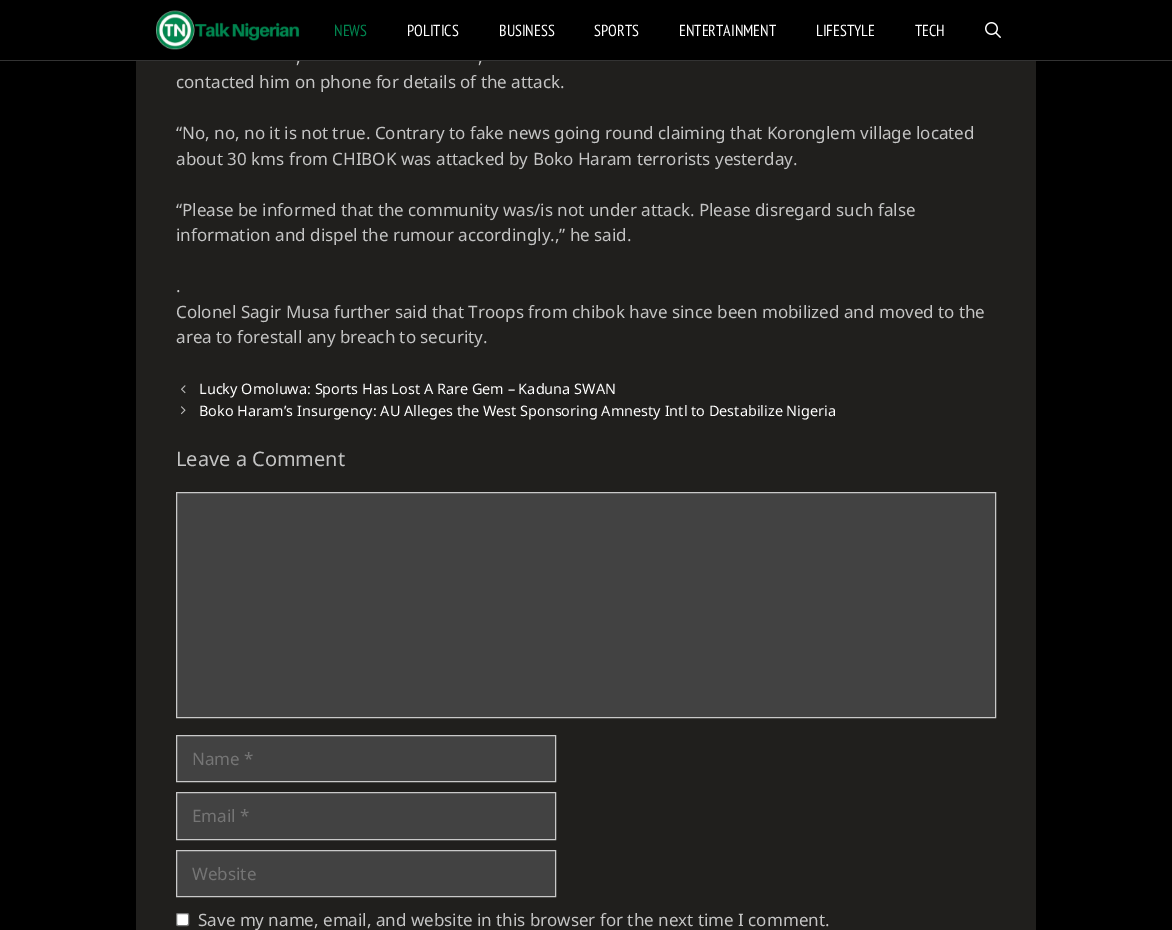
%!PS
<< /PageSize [1172 930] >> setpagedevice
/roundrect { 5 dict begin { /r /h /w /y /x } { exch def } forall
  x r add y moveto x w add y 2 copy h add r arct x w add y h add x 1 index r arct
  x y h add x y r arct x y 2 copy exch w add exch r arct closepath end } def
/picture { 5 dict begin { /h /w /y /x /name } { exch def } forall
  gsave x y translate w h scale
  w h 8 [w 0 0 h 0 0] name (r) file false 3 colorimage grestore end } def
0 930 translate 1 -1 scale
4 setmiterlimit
0 setgray
0 0 1172 930 rectfill
0.2 setgray
0 60 1172 1 rectfill
(img1.rgb) 156 10 144 40 picture
/PTSansNarrow-Regular [16 0 0 -16 0 0] selectfont
0.004 0.522 0.314 setrgbcolor
334 36 moveto (NEWS) show
1 setgray
407 36 moveto (POLITICS) show
499 36 moveto (BUSINESS) show
594 36 moveto (SPORTS) show
679 36 moveto (ENTERTAINMENT) show
816 36 moveto (LIFESTYLE) show
915 36 moveto (TECH) show
(img2.rgb) 985 22 16 16 picture
0.125 0.122 0.114 setrgbcolor
136 61 900 869 rectfill
/NotoSans-Regular [17 0 0 -17 0 0] selectfont
0.769 setgray
296 63 moveto (,) show
478 63 moveto (,) show
176 88 moveto (contacted him on phone for details of the attack.) show
176 139 moveto (“No, no, no it is not true. Contrary to fake news going round claiming that Koronglem village located) show
176 165 moveto (about 30 kms from CHIBOK was attacked by Boko Haram terrorists yesterday.) show
176 216 moveto (“Please be informed that the community was/is not under attack. Please disregard such false) show
176 241 moveto (information and dispel the rumour accordingly.,” he said.) show
176 292 moveto (.) show
176 318 moveto (Colonel Sagir Musa further said that Troops from chibok have since been mobilized and moved to the) show
176 343 moveto (area to forestall any breach to security.) show
(img3.rgb) 181 385 5 9 picture
/NotoSans-Regular [14.45 0 0 -14.45 0 0] selectfont
1 setgray
199 394 moveto (Lucky Omoluwa: Sports Has Lost A Rare Gem – Kaduna SWAN) show
(img4.rgb) 181 406 5 9 picture
199 416 moveto (Boko Haram’s Insurgency: AU Alleges the West Sponsoring Amnesty Intl to Destabilize Nigeria) show
/NotoSans-Regular [20 0 0 -20 0 0] selectfont
0.769 setgray
176 466 moveto (Leave a Comment) show
0.259 setgray
newpath 176.5 492.5 moveto 995.5 492.5 lineto 995.5 717.5 lineto 176.5 717.5 lineto closepath gsave fill grestore
0.788 setgray
stroke
0.259 setgray
newpath 176.5 735.5 moveto 555.5 735.5 lineto 555.5 781.5 lineto 176.5 781.5 lineto closepath gsave fill grestore
0.788 setgray
stroke
/NotoSans-Regular [17 0 0 -17 0 0] selectfont
0.459 setgray
192 765 moveto (Name *) show
0.259 setgray
newpath 176.5 792.5 moveto 555.5 792.5 lineto 555.5 839.5 lineto 176.5 839.5 lineto closepath gsave fill grestore
0.788 setgray
stroke
0.459 setgray
192 822 moveto (Email *) show
0.259 setgray
newpath 176.5 850.5 moveto 555.5 850.5 lineto 555.5 896.5 lineto 176.5 896.5 lineto closepath gsave fill grestore
0.788 setgray
stroke
0.459 setgray
192 880 moveto (Website) show
1 setgray
176.5 913.5 12 12 1.5 roundrect gsave fill grestore
0.463 setgray
stroke
0.769 setgray
198 926 moveto (Save my name, email, and website in this browser for the next time I comment.) show
showpage
